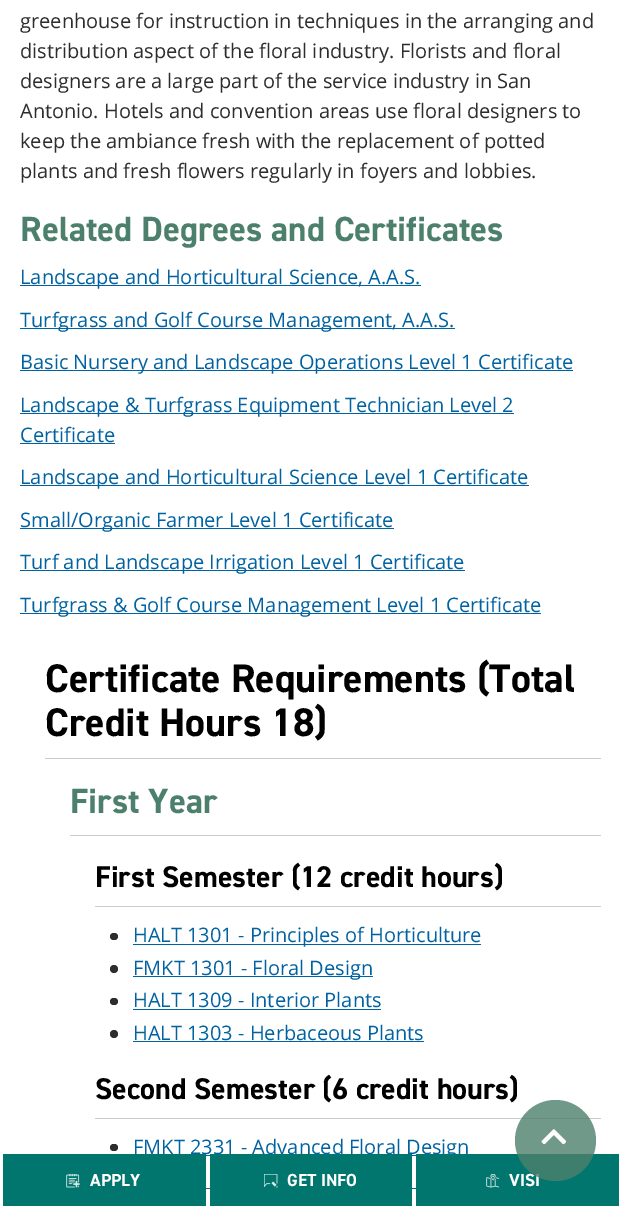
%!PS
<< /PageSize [621 1206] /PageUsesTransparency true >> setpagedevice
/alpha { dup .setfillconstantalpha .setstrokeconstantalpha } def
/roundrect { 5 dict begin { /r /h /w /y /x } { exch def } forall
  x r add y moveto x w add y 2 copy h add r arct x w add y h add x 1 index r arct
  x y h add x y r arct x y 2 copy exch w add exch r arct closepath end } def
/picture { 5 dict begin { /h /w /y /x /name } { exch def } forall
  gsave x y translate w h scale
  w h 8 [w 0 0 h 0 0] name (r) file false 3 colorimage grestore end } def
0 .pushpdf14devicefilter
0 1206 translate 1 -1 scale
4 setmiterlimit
1 setgray
0 0 621 1206 rectfill
/OpenSans-Regular [20 0 0 -20 0 0] selectfont
0.176 setgray
20 28 moveto (greenhouse for instruction in techniques in the arranging and) show
20 58 moveto (distribution aspect of the floral industry. Florists and floral) show
20 88 moveto (designers are a large part of the service industry in San) show
20 118 moveto (Antonio. Hotels and convention areas use floral designers to) show
20 148 moveto (keep the ambiance fresh with the replacement of potted) show
20 178 moveto (plants and fresh flowers regularly in foyers and lobbies.) show
/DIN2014-Bold [35 0 0 -35 0 0] selectfont
0.298 0.502 0.427 setrgbcolor
20 241 moveto (Related Degrees and Certificates) show
0 0.384 0.631 setrgbcolor
20 285 401 1 rectfill
/OpenSans-Regular [20 0 0 -20 0 0] selectfont
20 284 moveto (Landscape and Horticultural Science, A.A.S.) show
20 328 435 1 rectfill
20 327 moveto (Turfgrass and Golf Course Management, A.A.S.) show
20 370 553 1 rectfill
20 369 moveto (Basic Nursery and Landscape Operations Level 1 Certificate) show
20 413 494 1 rectfill
20 412 moveto (Landscape & Turfgrass Equipment Technician Level 2) show
20 442 moveto (Certificate) show
20 443 95 1 rectfill
20 485 509 1 rectfill
20 484 moveto (Landscape and Horticultural Science Level 1 Certificate) show
20 528 374 1 rectfill
20 527 moveto (Small/Organic Farmer Level 1 Certificate) show
20 570 445 1 rectfill
20 569 moveto (Turf and Landscape Irrigation Level 1 Certificate) show
20 613 521 1 rectfill
20 612 moveto (Turfgrass & Golf Course Management Level 1 Certificate) show
/DIN2014-Bold [40 0 0 -40 0 0] selectfont
0 setgray
45 692 moveto (Certificate Requirements \(Total) show
45 736 moveto (Credit Hours 18\)) show
0.8 setgray
45 758 556 1 rectfill
/DIN2014-Bold [35 0 0 -35 0 0] selectfont
0.298 0.502 0.427 setrgbcolor
70 813 moveto (First Year) show
0.8 setgray
70 835 531 1 rectfill
/DIN2014-Bold [30 0 0 -30 0 0] selectfont
0 setgray
95 887 moveto (First Semester \(12 credit hours\)) show
0.8 setgray
95 906 506 1 rectfill
0.176 setgray
110 933 8 7 3.5 roundrect fill
0 0.384 0.631 setrgbcolor
133 944 348 1 rectfill
/OpenSans-Regular [20 0 0 -20 0 0] selectfont
133 942 moveto (HALT 1301 - Principles of Horticulture) show
0.176 setgray
newpath 114 969 4 0 360 arc closepath fill
0 0.384 0.631 setrgbcolor
133 976 240 1 rectfill
133 975 moveto (FMKT 1301 - Floral Design) show
0.176 setgray
110 998 8 7 3.5 roundrect fill
0 0.384 0.631 setrgbcolor
133 1007 moveto (HALT 1309 - Interior Plants) show
133 1009 248 1 rectfill
0.176 setgray
newpath 114 1034 4 0 360 arc closepath fill
0 0.384 0.631 setrgbcolor
133 1040 moveto (HALT 1303 - Herbaceous Plants) show
133 1041 291 1 rectfill
/DIN2014-Bold [30 0 0 -30 0 0] selectfont
0 setgray
95 1099 moveto (Second Semester \(6 credit hours\)) show
0.8 setgray
95 1118 506 1 rectfill
0.176 setgray
110 1144 8 7 3.5 roundrect fill
0 0.384 0.631 setrgbcolor
206 1155 210 1 rectfill
/OpenSans-Regular [20 0 0 -20 0 0] selectfont
133 1154 moveto (FMKT 2331 - Advanced Floral Design) show
206 1188 210 1 rectfill
0.004 0.463 0.431 setrgbcolor
3 1154 203 52 rectfill
(img1.rgb) 66 1174 14 14 picture
/DIN2014-Bold [17.5 0 0 -17.5 0 0] selectfont
1 setgray
90 1186 moveto (APPLY) show
0.004 0.463 0.431 setrgbcolor
210 1154 202 52 rectfill
(img2.rgb) 264 1174 14 14 picture
1 setgray
287 1186 moveto (GET INFO) show
0.004 0.463 0.431 setrgbcolor
416 1154 203 52 rectfill
(img3.rgb) 486 1174 13 14 picture
1 setgray
509 1186 moveto (VISI) show
0.8 alpha
0.298 0.502 0.427 setrgbcolor
newpath 555.5 1140.5 40.5 0 360 arc closepath fill
1 alpha
(img4.rgb) 541 1129 25 16 picture
.poppdf14devicefilter showpage
